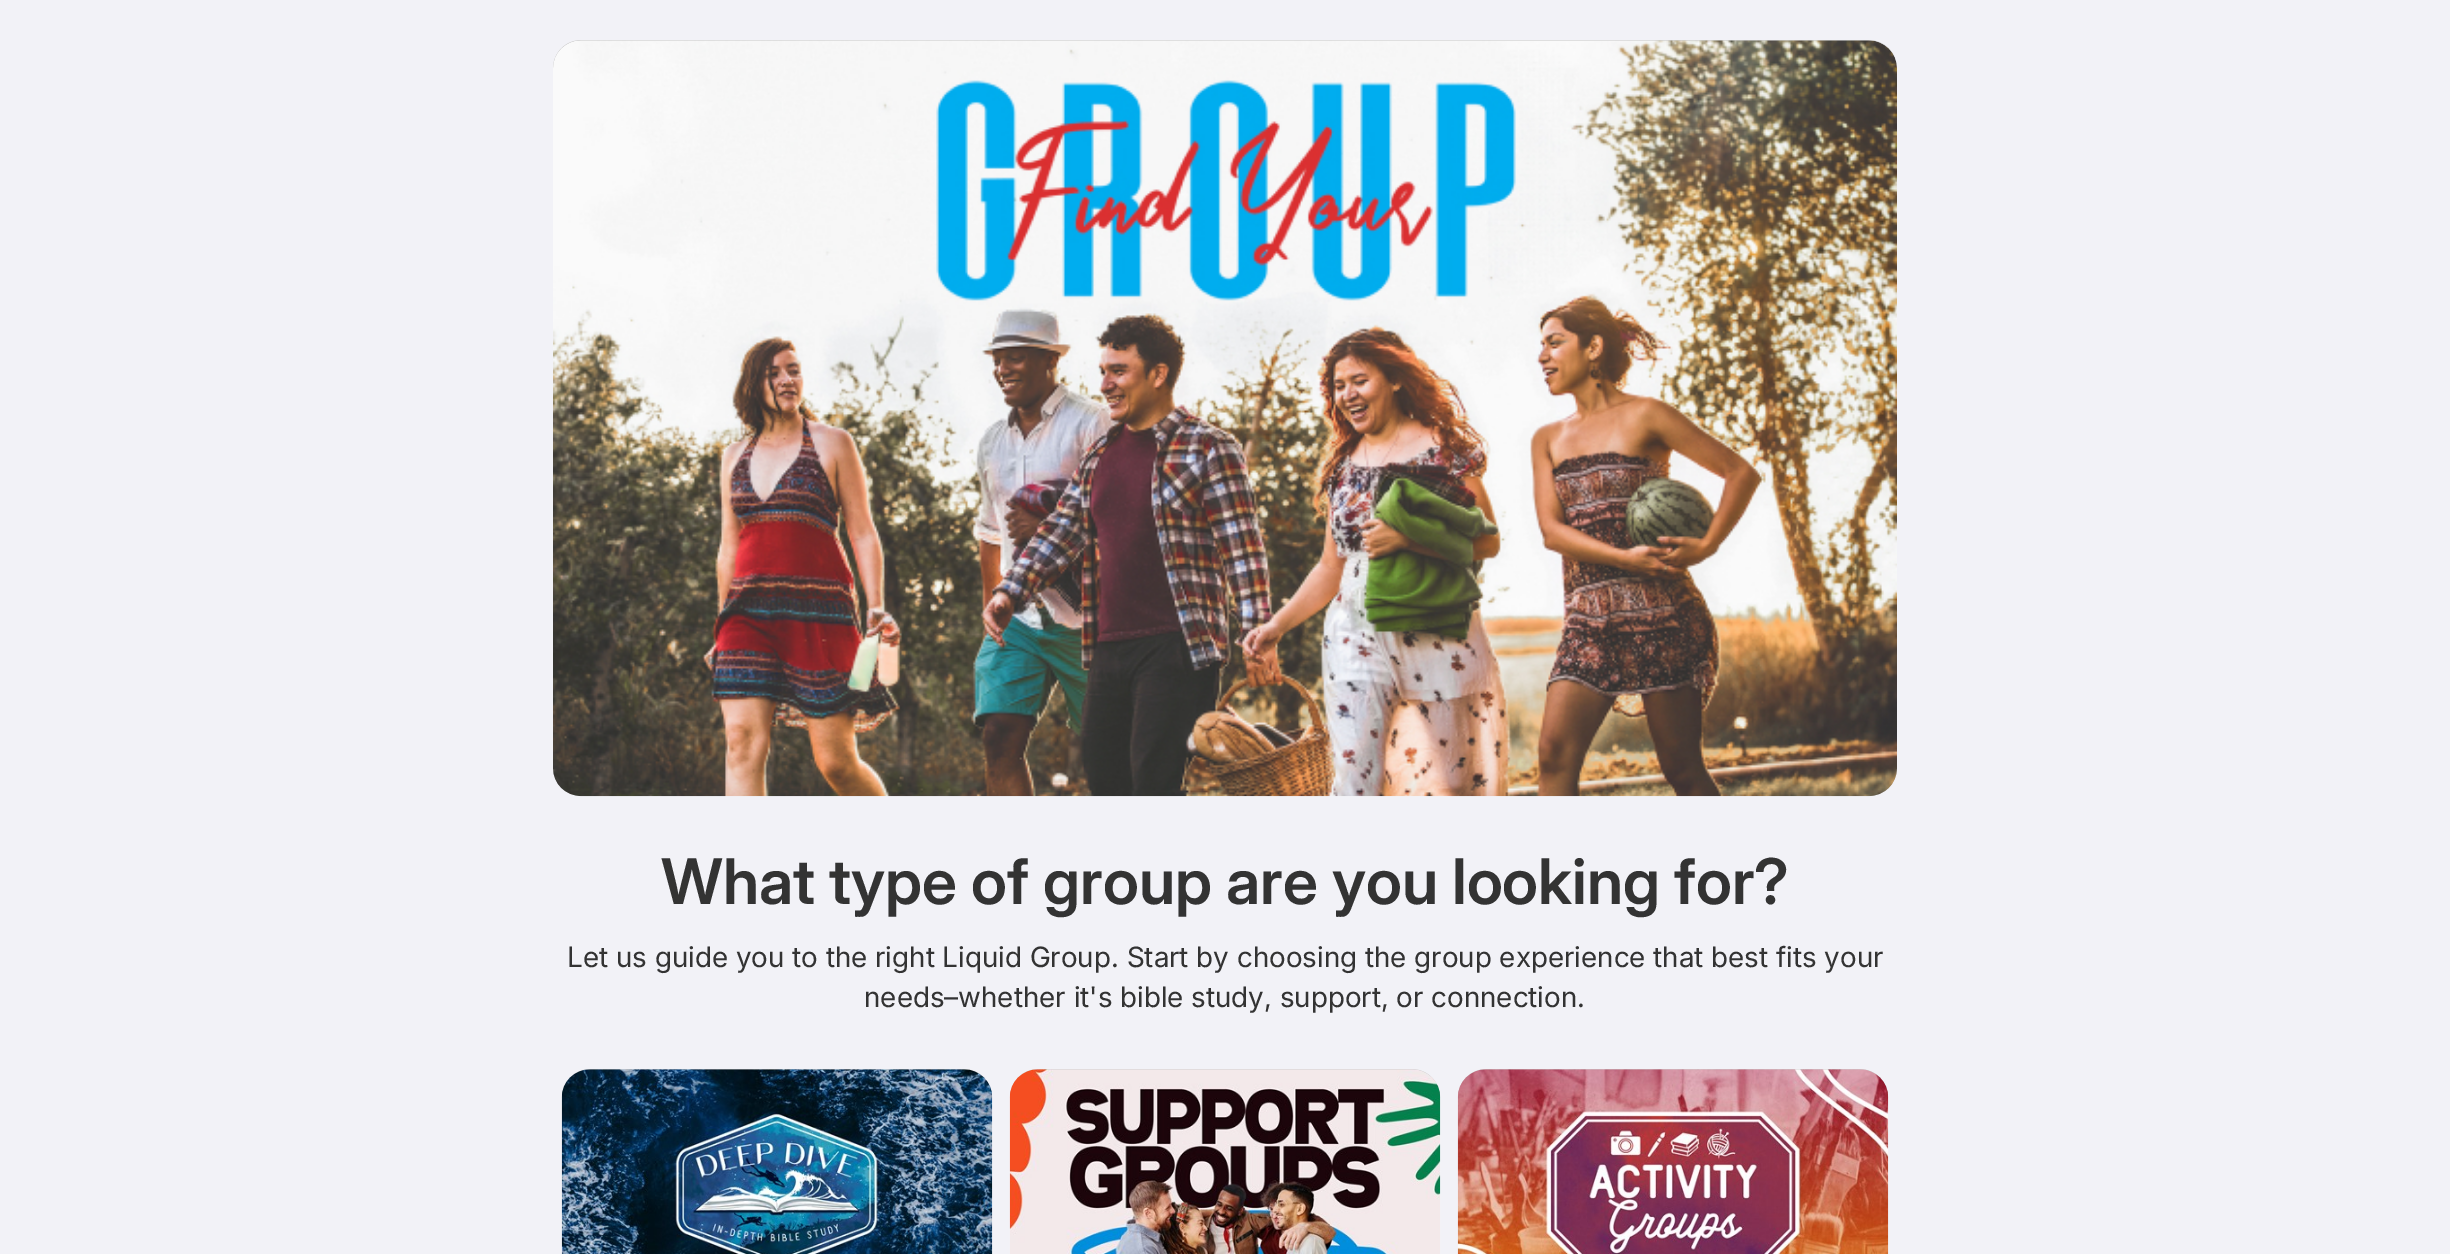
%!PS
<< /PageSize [2450 1254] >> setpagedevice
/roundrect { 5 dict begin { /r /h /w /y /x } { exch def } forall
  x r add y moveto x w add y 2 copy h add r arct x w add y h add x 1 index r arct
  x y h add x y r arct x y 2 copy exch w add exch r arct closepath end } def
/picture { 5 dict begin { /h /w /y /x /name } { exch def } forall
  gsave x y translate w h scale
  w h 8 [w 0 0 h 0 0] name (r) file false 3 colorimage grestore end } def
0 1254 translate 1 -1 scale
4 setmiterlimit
0.949 0.949 0.969 setrgbcolor
0 0 2450 1254 rectfill
0.8 setgray
553 40 1344 756 28 roundrect fill
(img1.rgb) 553 40 1344 757 picture
/Inter-SemiBold [63 0 0 -63 0 0] selectfont
0.2 setgray
661 904 moveto (What type of group are you looking for?) show
/Inter-Regular [28 0 0 -28 0 0] selectfont
567 967 moveto (Let us guide you to the right Liquid Group. Start by choosing the group experience that best fits your) show
864 1007 moveto (needs–whether it's bible study, support, or connection.) show
0.8 setgray
562 1069 430 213 28 roundrect fill
(img2.rgb) 561 1069 432 185 picture
1010 1069 430 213 28 roundrect fill
(img3.rgb) 1009 1069 432 185 picture
1458 1069 430 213 28 roundrect fill
(img4.rgb) 1457 1069 432 185 picture
showpage
